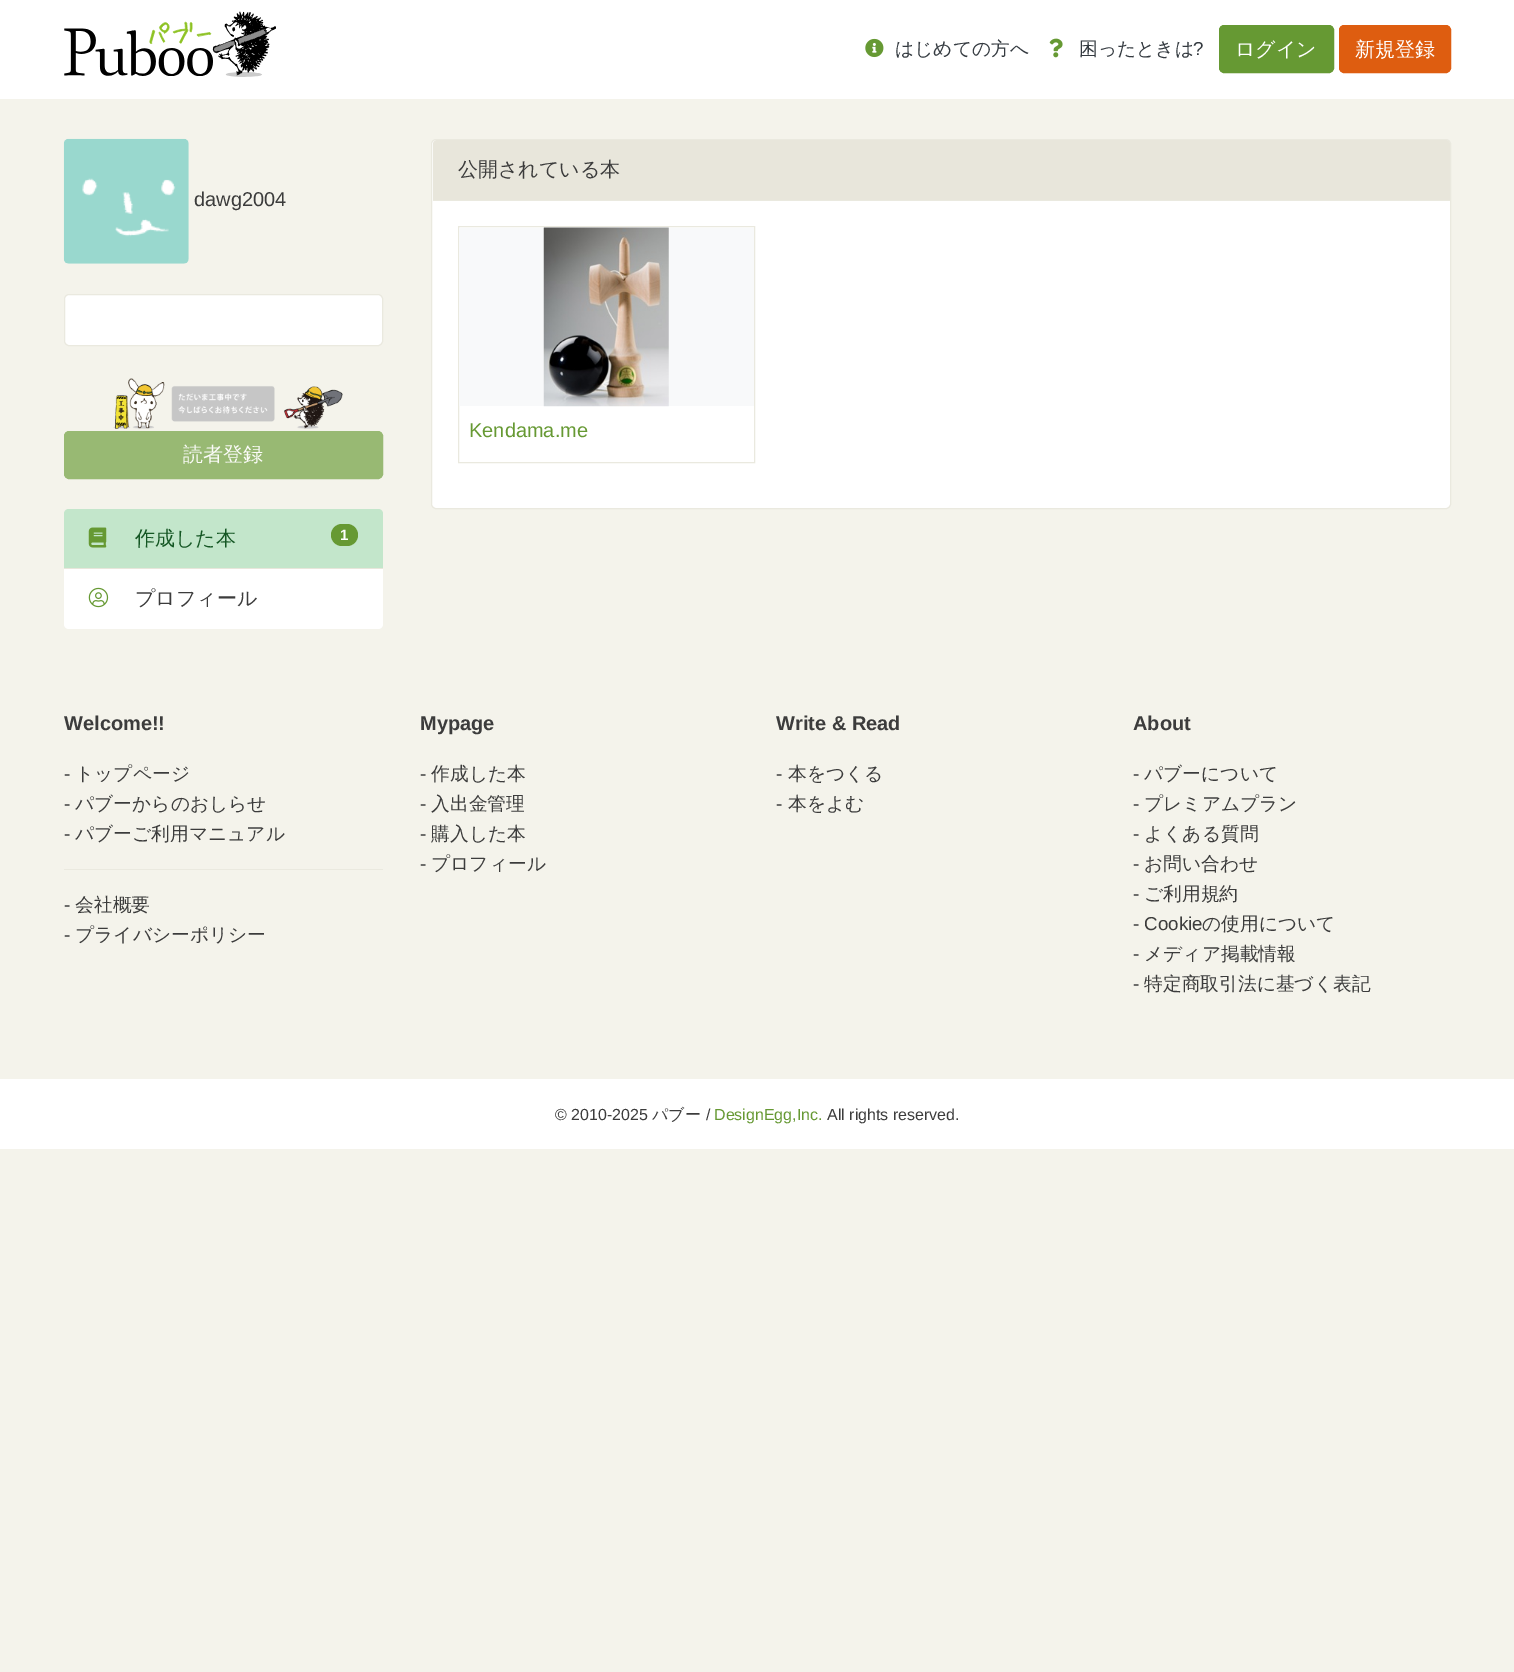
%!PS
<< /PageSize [1514 1672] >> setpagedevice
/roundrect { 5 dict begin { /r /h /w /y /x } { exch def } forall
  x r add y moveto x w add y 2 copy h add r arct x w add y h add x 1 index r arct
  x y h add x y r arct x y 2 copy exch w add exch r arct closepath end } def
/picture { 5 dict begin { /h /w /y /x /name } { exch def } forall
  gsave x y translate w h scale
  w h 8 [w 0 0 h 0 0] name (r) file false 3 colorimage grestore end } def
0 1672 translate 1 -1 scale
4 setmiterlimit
0.957 0.953 0.922 setrgbcolor
0 0 1514 1672 rectfill
1 setgray
0 0 1514 99 rectfill
(img1.rgb) 64 11 212 66 picture
(img2.rgb) 865 38 19 20 picture
/WenQuanYiZenHei-Medium [18.75 0 0 -18.75 0 0] selectfont
0.204 0.227 0.251 setrgbcolor
895 55 moveto (はじめての方へ) show
(img3.rgb) 1049 38 14 20 picture
1079 55 moveto (困ったときは) show
/LiberationSans-Regular [18.75 0 0 -18.75 0 0] selectfont
1193 55 moveto (?) show
0.4 0.6 0.2 setrgbcolor
1219.5 25.5 114 47 4.5 roundrect gsave fill grestore
stroke
/WenQuanYiZenHei-Medium [20 0 0 -20 0 0] selectfont
1 setgray
1235 56 moveto (ログイン) show
0.871 0.365 0.063 setrgbcolor
1339.5 25.5 111 47 4.5 roundrect gsave fill grestore
stroke
1 setgray
1355 56 moveto (新規登録) show
(img4.rgb) 63 138 126 126 picture
/LiberationSans-Regular [20 0 0 -20 0 0] selectfont
0.235 setgray
194 206 moveto (dawg2004) show
1 setgray
64.5 294.5 318 51 4.5 roundrect gsave fill grestore
0.918 0.914 0.875 setrgbcolor
stroke
(img5.rgb) 113 378 230 51 picture
0.596 0.725 0.451 setrgbcolor
64.5 431.5 318 47 4.5 roundrect gsave fill grestore
stroke
/WenQuanYiZenHei-Medium [20 0 0 -20 0 0] selectfont
0.984 0.984 0.973 setrgbcolor
183 461 moveto (読者登録) show
0.765 0.902 0.796 setrgbcolor
newpath 69 509 moveto 378 509 lineto 381 509 383 511 383 514 curveto 383 569 lineto 64 569 lineto 64 514 lineto 64 511 66 509 69 509 curveto closepath fill
(img6.rgb) 88 527 19 21 picture
0.082 0.341 0.141 setrgbcolor
135 545 moveto (作成した本) show
0.4 0.6 0.2 setrgbcolor
331 524 27 22 11 roundrect fill
/LiberationSans-Bold [15 0 0 -15 0 0] selectfont
1 setgray
340 540 moveto (1) show
newpath 64 568 moveto 383 568 lineto 383 624 lineto 383 627 381 629 378 629 curveto 69 629 lineto 66 629 64 627 64 624 curveto closepath fill
0.91 0.902 0.859 setrgbcolor
64 568 319 1 rectfill
(img7.rgb) 88 587 21 21 picture
/WenQuanYiZenHei-Medium [20 0 0 -20 0 0] selectfont
0.235 setgray
135 605 moveto (プロフィール) show
1 setgray
431.5 139.5 1019 369 4.5 roundrect gsave fill grestore
0.918 0.914 0.875 setrgbcolor
stroke
0.91 0.902 0.859 setrgbcolor
newpath 437 140 moveto 1446 140 lineto 1448 140 1450 142 1450 144 curveto 1450 201 lineto 433 201 lineto 433 144 lineto 433 142 435 140 437 140 curveto closepath fill
0.918 0.914 0.875 setrgbcolor
433 200 1017 1 rectfill
0.235 setgray
458 176 moveto (公開されている本) show
0.918 0.914 0.875 setrgbcolor
458.5 226.5 296 236 rectstroke
0.973 0.976 0.98 setrgbcolor
459 228 295 178 rectfill
(img8.rgb) 543 227 126 180 picture
/LiberationSans-Regular [20 0 0 -20 0 0] selectfont
0.4 0.6 0.2 setrgbcolor
469 437 moveto (Kendama.me) show
/LiberationSans-Bold [20 0 0 -20 0 0] selectfont
0.235 setgray
64 730 moveto (Welcome!!) show
/LiberationSans-Regular [18.75 0 0 -18.75 0 0] selectfont
64 780 moveto (-) show
/WenQuanYiZenHei-Medium [18.75 0 0 -18.75 0 0] selectfont
75 780 moveto (トップページ) show
/LiberationSans-Regular [18.75 0 0 -18.75 0 0] selectfont
64 810 moveto (-) show
/WenQuanYiZenHei-Medium [18.75 0 0 -18.75 0 0] selectfont
75 810 moveto (パブーからのおしらせ) show
/LiberationSans-Regular [18.75 0 0 -18.75 0 0] selectfont
64 840 moveto (-) show
/WenQuanYiZenHei-Medium [18.75 0 0 -18.75 0 0] selectfont
75 840 moveto (パブーご利用マニュアル) show
0.918 0.914 0.875 setrgbcolor
64 869 319 1 rectfill
/LiberationSans-Regular [18.75 0 0 -18.75 0 0] selectfont
0.235 setgray
64 911 moveto (-) show
/WenQuanYiZenHei-Medium [18.75 0 0 -18.75 0 0] selectfont
75 911 moveto (会社概要) show
/LiberationSans-Regular [18.75 0 0 -18.75 0 0] selectfont
64 941 moveto (-) show
/WenQuanYiZenHei-Medium [18.75 0 0 -18.75 0 0] selectfont
75 941 moveto (プライバシーポリシー) show
/LiberationSans-Bold [20 0 0 -20 0 0] selectfont
420 730 moveto (Mypage) show
/LiberationSans-Regular [18.75 0 0 -18.75 0 0] selectfont
420 780 moveto (-) show
/WenQuanYiZenHei-Medium [18.75 0 0 -18.75 0 0] selectfont
431 780 moveto (作成した本) show
/LiberationSans-Regular [18.75 0 0 -18.75 0 0] selectfont
420 810 moveto (-) show
/WenQuanYiZenHei-Medium [18.75 0 0 -18.75 0 0] selectfont
431 810 moveto (入出金管理) show
/LiberationSans-Regular [18.75 0 0 -18.75 0 0] selectfont
420 840 moveto (-) show
/WenQuanYiZenHei-Medium [18.75 0 0 -18.75 0 0] selectfont
431 840 moveto (購入した本) show
/LiberationSans-Regular [18.75 0 0 -18.75 0 0] selectfont
420 870 moveto (-) show
/WenQuanYiZenHei-Medium [18.75 0 0 -18.75 0 0] selectfont
431 870 moveto (プロフィール) show
/LiberationSans-Bold [20 0 0 -20 0 0] selectfont
776 730 moveto (Write & Read) show
/LiberationSans-Regular [18.75 0 0 -18.75 0 0] selectfont
776 780 moveto (-) show
/WenQuanYiZenHei-Medium [18.75 0 0 -18.75 0 0] selectfont
788 780 moveto (本をつくる) show
/LiberationSans-Regular [18.75 0 0 -18.75 0 0] selectfont
776 810 moveto (-) show
/WenQuanYiZenHei-Medium [18.75 0 0 -18.75 0 0] selectfont
788 810 moveto (本をよむ) show
/LiberationSans-Bold [20 0 0 -20 0 0] selectfont
1133 730 moveto (About) show
/LiberationSans-Regular [18.75 0 0 -18.75 0 0] selectfont
1133 780 moveto (-) show
/WenQuanYiZenHei-Medium [18.75 0 0 -18.75 0 0] selectfont
1144 780 moveto (パブーについて) show
/LiberationSans-Regular [18.75 0 0 -18.75 0 0] selectfont
1133 810 moveto (-) show
/WenQuanYiZenHei-Medium [18.75 0 0 -18.75 0 0] selectfont
1144 810 moveto (プレミアムプラン) show
/LiberationSans-Regular [18.75 0 0 -18.75 0 0] selectfont
1133 840 moveto (-) show
/WenQuanYiZenHei-Medium [18.75 0 0 -18.75 0 0] selectfont
1144 840 moveto (よくある質問) show
/LiberationSans-Regular [18.75 0 0 -18.75 0 0] selectfont
1133 870 moveto (-) show
/WenQuanYiZenHei-Medium [18.75 0 0 -18.75 0 0] selectfont
1144 870 moveto (お問い合わせ) show
/LiberationSans-Regular [18.75 0 0 -18.75 0 0] selectfont
1133 900 moveto (-) show
/WenQuanYiZenHei-Medium [18.75 0 0 -18.75 0 0] selectfont
1144 900 moveto (ご利用規約) show
/LiberationSans-Regular [18.75 0 0 -18.75 0 0] selectfont
1133 930 moveto (- Cookie) show
/WenQuanYiZenHei-Medium [18.75 0 0 -18.75 0 0] selectfont
1202 930 moveto (の使用について) show
/LiberationSans-Regular [18.75 0 0 -18.75 0 0] selectfont
1133 960 moveto (-) show
/WenQuanYiZenHei-Medium [18.75 0 0 -18.75 0 0] selectfont
1144 960 moveto (メディア掲載情報) show
/LiberationSans-Regular [18.75 0 0 -18.75 0 0] selectfont
1133 990 moveto (-) show
/WenQuanYiZenHei-Medium [18.75 0 0 -18.75 0 0] selectfont
1144 990 moveto (特定商取引法に基づく表記) show
1 setgray
0 1079 1514 70 rectfill
/LiberationSans-Regular [16 0 0 -16 0 0] selectfont
0.235 setgray
555 1120 moveto (© 2010-2025) show
/WenQuanYiZenHei-Medium [16 0 0 -16 0 0] selectfont
652 1120 moveto (パブー) show
/LiberationSans-Regular [16 0 0 -16 0 0] selectfont
706 1120 moveto (/) show
0.4 0.6 0.2 setrgbcolor
714 1120 moveto (DesignEgg,Inc.) show
0.235 setgray
827 1120 moveto (All rights reserved.) show
showpage
